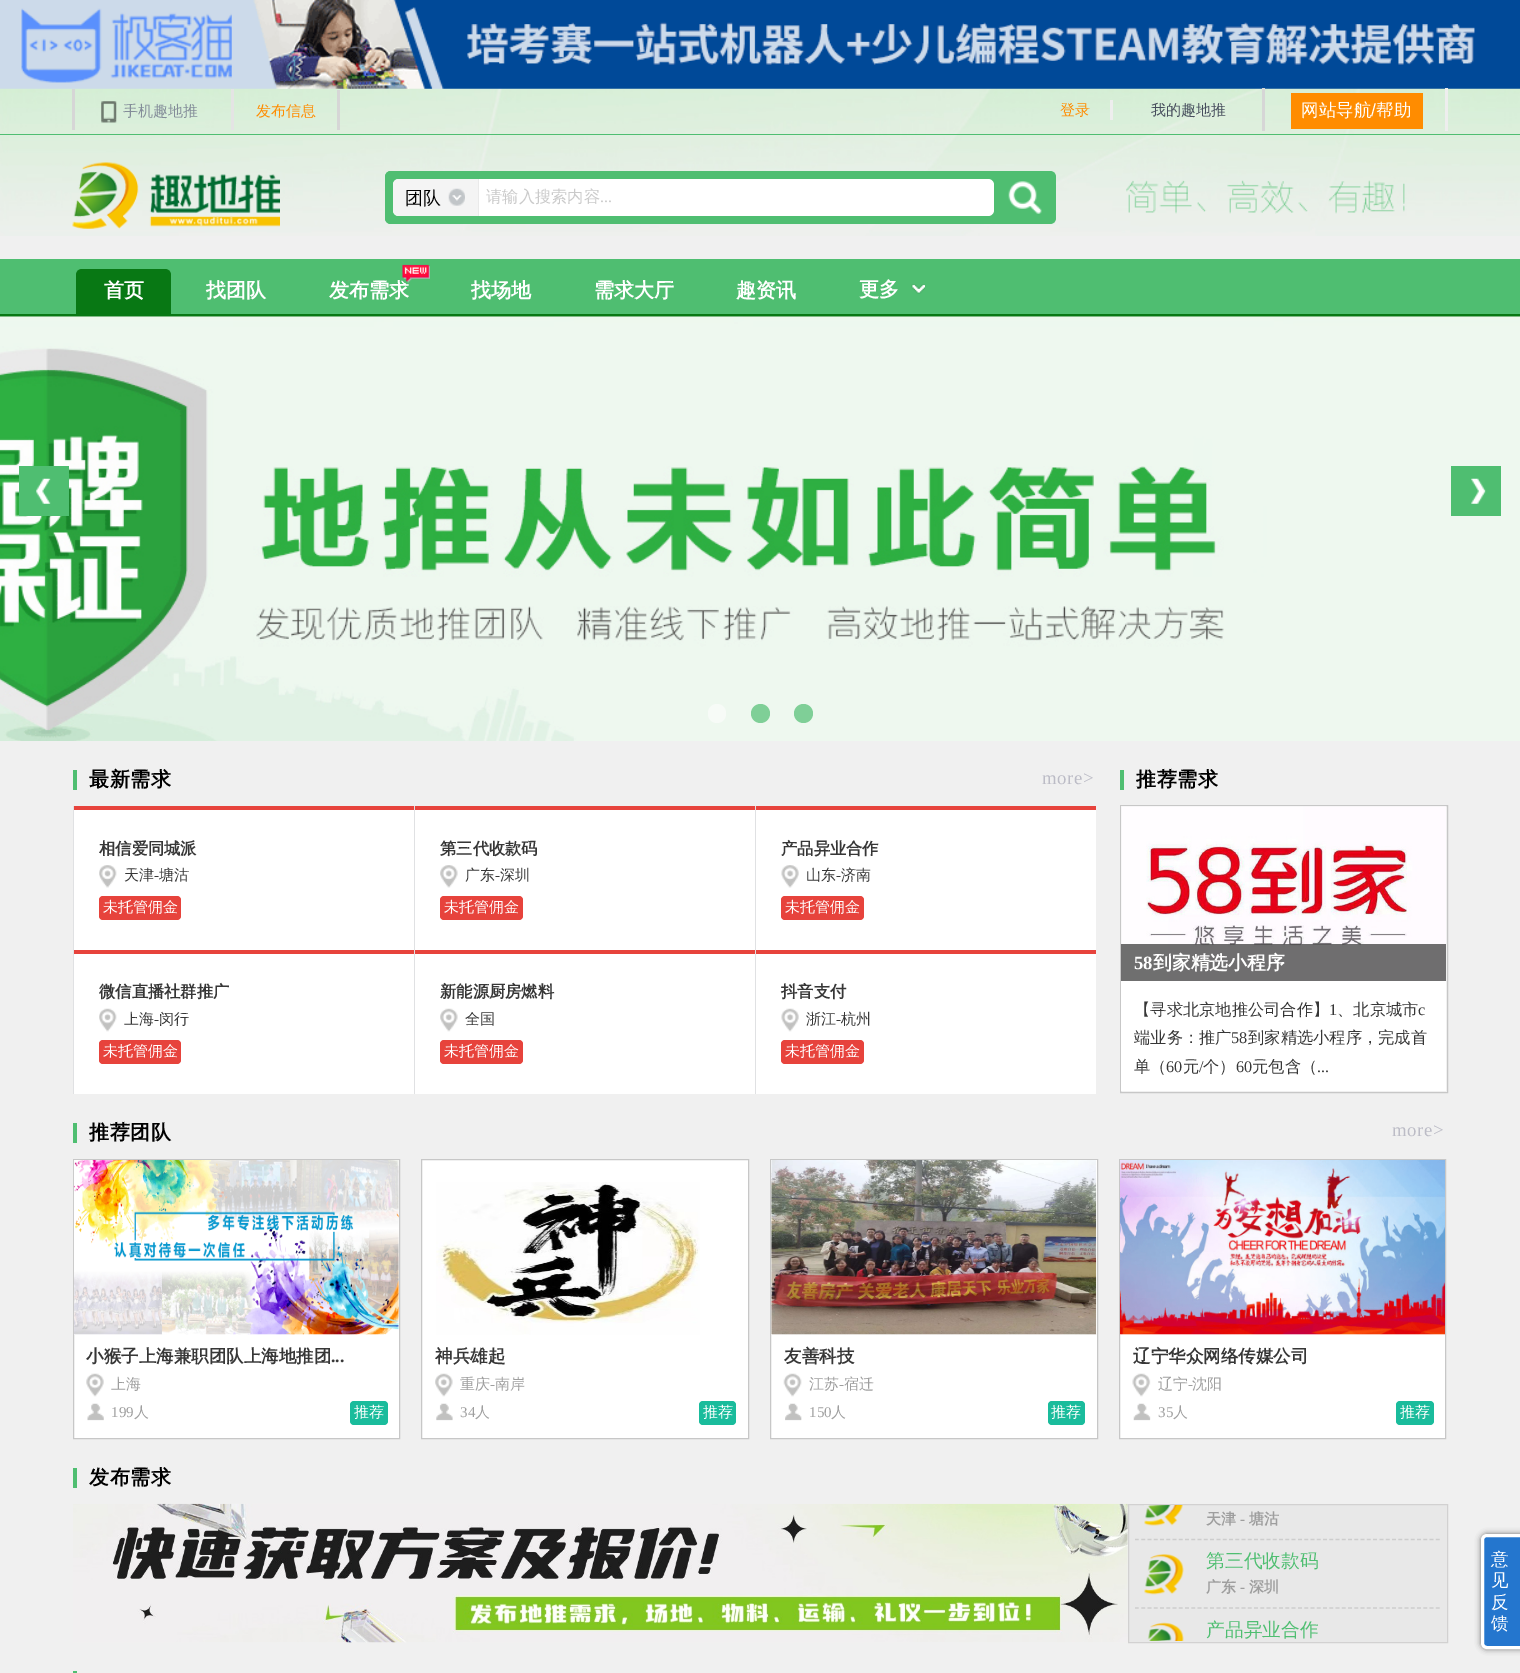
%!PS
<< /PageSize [1520 1673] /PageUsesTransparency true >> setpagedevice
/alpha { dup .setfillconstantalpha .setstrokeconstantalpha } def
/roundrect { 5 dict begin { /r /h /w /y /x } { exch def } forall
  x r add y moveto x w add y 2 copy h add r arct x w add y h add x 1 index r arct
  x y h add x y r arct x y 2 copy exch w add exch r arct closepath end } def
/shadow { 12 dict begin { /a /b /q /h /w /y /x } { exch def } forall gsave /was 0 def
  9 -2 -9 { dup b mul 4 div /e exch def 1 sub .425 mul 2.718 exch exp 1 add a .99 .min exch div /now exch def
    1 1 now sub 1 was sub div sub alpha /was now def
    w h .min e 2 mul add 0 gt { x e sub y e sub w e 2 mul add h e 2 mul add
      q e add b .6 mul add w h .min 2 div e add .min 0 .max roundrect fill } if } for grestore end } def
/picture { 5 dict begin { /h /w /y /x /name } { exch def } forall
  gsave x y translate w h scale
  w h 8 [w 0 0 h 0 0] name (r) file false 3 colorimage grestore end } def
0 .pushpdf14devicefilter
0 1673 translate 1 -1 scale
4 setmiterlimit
0.941 setgray
0 0 1520 1673 rectfill
(img1.rgb) 0 88 1520 148 picture
(img2.rgb) 0 0 1520 89 picture
0.31 0.745 0.443 setrgbcolor
0 134 1520 1 rectfill
0.839 setgray
72 89 3 41 rectfill
(img3.rgb) 101 101 16 22 picture
/WenQuanYiZenHei-Medium [15 0 0 -15 0 0] selectfont
0.518 0.553 0.6 setrgbcolor
123 116 moveto (手机趣地推) show
0.894 setgray
231 89 3 41 rectfill
0.839 setgray
337 90 3 40 rectfill
1 0.549 0 setrgbcolor
256 116 moveto (发布信息) show
0.933 setgray
1110 100 3 20 rectfill
1 0.549 0 setrgbcolor
1060 115 moveto (登录) show
0.839 setgray
1262 88 3 43 rectfill
0.278 0.306 0.365 setrgbcolor
1151 115 moveto (我的趣地推) show
0.933 setgray
1445 88 3 43 rectfill
1 0.549 0 setrgbcolor
1291 93 132 36 rectfill
/WenQuanYiZenHei-Medium [17.5 0 0 -17.5 0 0] selectfont
1 setgray
1301 116 moveto (网站导航) show
/LiberationSans-Regular [17.5 0 0 -17.5 0 0] selectfont
1371 116 moveto (/) show
/WenQuanYiZenHei-Medium [17.5 0 0 -17.5 0 0] selectfont
1376 116 moveto (帮助) show
(img4.rgb) 72 162 208 67 picture
0.31 0.745 0.443 setrgbcolor
newpath 391 171 moveto 994 171 lineto 994 224 lineto 391 224 lineto 387.5 224 385 221.5 385 218 curveto 385 177 lineto 385 173.5 387.5 171 391 171 curveto closepath fill
newpath 391 171 moveto 994 171 lineto 994 224 lineto 391 224 lineto 388 224 385 221 385 218 curveto 385 178 lineto 385 174 388 171 391 171 curveto closepath 392 179 moveto 994 179 lineto 994 216 lineto 392 216 lineto closepath eofill
1 setgray
393 179 601 37 6 roundrect fill
0.957 setgray
newpath 399 179 moveto 479 179 lineto 479 216 lineto 399 216 lineto 395.5 216 393 213.5 393 210 curveto 393 185 lineto 393 181.5 395.5 179 399 179 curveto closepath fill
0.918 setgray
478 179 1 37 rectfill
/WenQuanYiZenHei-Medium [18 0 0 -18 0 0] selectfont
0 setgray
405 204 moveto (团队) show
(img5.rgb) 448 188 17 18 picture
/WenQuanYiZenHei-Medium [16.25 0 0 -16.25 0 0] selectfont
0.792 setgray
486 202 moveto (请输入搜索内容) show
/LiberationSerif-Regular [16.25 0 0 -16.25 0 0] selectfont
600 202 moveto (...) show
0.31 0.745 0.443 setrgbcolor
newpath 994 171 moveto 1050 171 lineto 1053.5 171 1056 173.5 1056 177 curveto 1056 218 lineto 1056 221.5 1053.5 224 1050 224 curveto 994 224 lineto closepath fill
(img6.rgb) 1008 181 34 33 picture
(img7.rgb) 1126 180 279 34 picture
0 259 1520 55 rectfill
0.031 0.471 0.078 setrgbcolor
newpath 82 269 moveto 165 269 lineto 168.5 269 171 271.5 171 275 curveto 171 314 lineto 76 314 lineto 76 275 lineto 76 271.5 78.5 269 82 269 curveto closepath fill
/WenQuanYiZenHei-Bold [20 0 0 -20 0 0] selectfont
1 setgray
104 297 moveto (首页) show
206 297 moveto (找团队) show
329 297 moveto (发布需求) show
(img8.rgb) 402 264 28 19 picture
471 297 moveto (找场地) show
594 297 moveto (需求大厅) show
736 297 moveto (趣资讯) show
859 296 moveto (更多) show
(img9.rgb) 911 284 14 10 picture
0.031 0.471 0.078 setrgbcolor
0 314 1520 3 rectfill
(img10.rgb) 0 316 1520 425 picture
0.31 0.745 0.443 setrgbcolor
19 466 50 50 rectfill
(img11.rgb) 36 478 15 26 picture
1451 466 50 50 rectfill
(img12.rgb) 1471 478 15 26 picture
0.969 0.984 0.969 setrgbcolor
708 704 18 19 9 roundrect fill
0.498 0.812 0.592 setrgbcolor
newpath 760.5 713.5 9.5 0 360 arc closepath fill
newpath 803.5 713.5 9.5 0 360 arc closepath fill
0.31 0.745 0.443 setrgbcolor
73 770 4 20 rectfill
0 setgray
89 786 moveto 0.5 0 (最新需求) ashow
/LiberationSerif-Regular [18.75 0 0 -18.75 0 0] selectfont
0.737 0.737 0.776 setrgbcolor
1042 784 moveto 0.5 0 (more>) ashow
1 setgray
74 810 340 140 rectfill
0.878 0.882 0.89 setrgbcolor
73 806 1 288 rectfill
0.906 0.263 0.235 setrgbcolor
74 806 340 4 rectfill
/WenQuanYiZenHei-Bold [16.25 0 0 -16.25 0 0] selectfont
0.216 setgray
99 854 moveto (相信爱同城派) show
(img13.rgb) 99 865 18 23 picture
/WenQuanYiZenHei-Medium [15 0 0 -15 0 0] selectfont
124 880 moveto (天津) show
/LiberationSerif-Regular [15 0 0 -15 0 0] selectfont
154 880 moveto (-) show
/WenQuanYiZenHei-Medium [15 0 0 -15 0 0] selectfont
159 880 moveto (塘沽) show
0.906 0.263 0.235 setrgbcolor
99 896 82 24 4 roundrect fill
1 setgray
103 912 moveto (未托管佣金) show
415 810 340 140 rectfill
0.878 0.882 0.89 setrgbcolor
414 806 1 288 rectfill
0.906 0.263 0.235 setrgbcolor
415 806 340 4 rectfill
/WenQuanYiZenHei-Bold [16.25 0 0 -16.25 0 0] selectfont
0.216 setgray
440 854 moveto (第三代收款码) show
(img14.rgb) 440 865 18 23 picture
/WenQuanYiZenHei-Medium [15 0 0 -15 0 0] selectfont
465 880 moveto (广东) show
/LiberationSerif-Regular [15 0 0 -15 0 0] selectfont
495 880 moveto (-) show
/WenQuanYiZenHei-Medium [15 0 0 -15 0 0] selectfont
500 880 moveto (深圳) show
0.906 0.263 0.235 setrgbcolor
440 896 83 24 4 roundrect fill
1 setgray
444 912 moveto (未托管佣金) show
756 810 340 140 rectfill
0.878 0.882 0.89 setrgbcolor
755 806 1 288 rectfill
0.906 0.263 0.235 setrgbcolor
756 806 340 4 rectfill
/WenQuanYiZenHei-Bold [16.25 0 0 -16.25 0 0] selectfont
0.216 setgray
781 854 moveto (产品异业合作) show
(img15.rgb) 781 865 18 23 picture
/WenQuanYiZenHei-Medium [15 0 0 -15 0 0] selectfont
806 880 moveto (山东) show
/LiberationSerif-Regular [15 0 0 -15 0 0] selectfont
836 880 moveto (-) show
/WenQuanYiZenHei-Medium [15 0 0 -15 0 0] selectfont
841 880 moveto (济南) show
0.906 0.263 0.235 setrgbcolor
781 896 83 24 4 roundrect fill
1 setgray
785 912 moveto (未托管佣金) show
74 954 340 140 rectfill
0.906 0.263 0.235 setrgbcolor
74 950 340 4 rectfill
/WenQuanYiZenHei-Bold [16.25 0 0 -16.25 0 0] selectfont
0.216 setgray
99 997 moveto (微信直播社群推广) show
(img16.rgb) 99 1008 18 24 picture
/WenQuanYiZenHei-Medium [15 0 0 -15 0 0] selectfont
124 1024 moveto (上海) show
/LiberationSerif-Regular [15 0 0 -15 0 0] selectfont
154 1024 moveto (-) show
/WenQuanYiZenHei-Medium [15 0 0 -15 0 0] selectfont
159 1024 moveto (闵行) show
0.906 0.263 0.235 setrgbcolor
99 1040 82 24 4 roundrect fill
1 setgray
103 1056 moveto (未托管佣金) show
415 954 340 140 rectfill
0.906 0.263 0.235 setrgbcolor
415 950 340 4 rectfill
/WenQuanYiZenHei-Bold [16.25 0 0 -16.25 0 0] selectfont
0.216 setgray
440 997 moveto (新能源厨房燃料) show
(img17.rgb) 440 1008 18 24 picture
/WenQuanYiZenHei-Medium [15 0 0 -15 0 0] selectfont
465 1024 moveto (全国) show
0.906 0.263 0.235 setrgbcolor
440 1040 83 24 4 roundrect fill
1 setgray
444 1056 moveto (未托管佣金) show
756 954 340 140 rectfill
0.906 0.263 0.235 setrgbcolor
756 950 340 4 rectfill
/WenQuanYiZenHei-Bold [16.25 0 0 -16.25 0 0] selectfont
0.216 setgray
781 997 moveto (抖音支付) show
(img18.rgb) 781 1008 18 24 picture
/WenQuanYiZenHei-Medium [15 0 0 -15 0 0] selectfont
806 1024 moveto (浙江) show
/LiberationSerif-Regular [15 0 0 -15 0 0] selectfont
836 1024 moveto (-) show
/WenQuanYiZenHei-Medium [15 0 0 -15 0 0] selectfont
841 1024 moveto (杭州) show
0.906 0.263 0.235 setrgbcolor
781 1040 83 24 4 roundrect fill
1 setgray
785 1056 moveto (未托管佣金) show
0.31 0.745 0.443 setrgbcolor
1120 770 4 20 rectfill
/WenQuanYiZenHei-Bold [20 0 0 -20 0 0] selectfont
0 setgray
1136 786 moveto 0.5 0 (推荐需求) ashow
0.78 setgray
1120.5 805.5 327 287 rectstroke
(img19.rgb) 1121 806 325 175 picture
0.8 alpha
0.294 setgray
1121 944 325 37 rectfill
/LiberationSerif-Bold [18.75 0 0 -18.75 0 0] selectfont
1 alpha
1 setgray
1134 969 moveto (58) show
/WenQuanYiZenHei-Bold [18.75 0 0 -18.75 0 0] selectfont
1153 969 moveto (到家精选小程序) show
1121 981 325 110 rectfill
/WenQuanYiZenHei-Medium [16.25 0 0 -16.25 0 0] selectfont
0.216 setgray
1134 1015 moveto (【寻求北京地推公司合作】) show
/LiberationSerif-Regular [16.25 0 0 -16.25 0 0] selectfont
1329 1015 moveto (1) show
/WenQuanYiZenHei-Medium [16.25 0 0 -16.25 0 0] selectfont
1337 1015 moveto (、北京城市) show
/LiberationSerif-Regular [16.25 0 0 -16.25 0 0] selectfont
1418 1015 moveto (c) show
/WenQuanYiZenHei-Medium [16.25 0 0 -16.25 0 0] selectfont
1134 1043 moveto (端业务：推广) show
/LiberationSerif-Regular [16.25 0 0 -16.25 0 0] selectfont
1231 1043 moveto (58) show
/WenQuanYiZenHei-Medium [16.25 0 0 -16.25 0 0] selectfont
1248 1043 moveto (到家精选小程序，完成首) show
1134 1072 moveto (单（) show
/LiberationSerif-Regular [16.25 0 0 -16.25 0 0] selectfont
1166 1072 moveto (60) show
/WenQuanYiZenHei-Medium [16.25 0 0 -16.25 0 0] selectfont
1183 1072 moveto (元) show
/LiberationSerif-Regular [16.25 0 0 -16.25 0 0] selectfont
1199 1072 moveto (/) show
/WenQuanYiZenHei-Medium [16.25 0 0 -16.25 0 0] selectfont
1203 1072 moveto (个）) show
/LiberationSerif-Regular [16.25 0 0 -16.25 0 0] selectfont
1236 1072 moveto (60) show
/WenQuanYiZenHei-Medium [16.25 0 0 -16.25 0 0] selectfont
1252 1072 moveto (元包含（) show
/LiberationSerif-Regular [16.25 0 0 -16.25 0 0] selectfont
1317 1072 moveto (...) show
0.31 0.745 0.443 setrgbcolor
73 1123 4 20 rectfill
/WenQuanYiZenHei-Bold [20 0 0 -20 0 0] selectfont
0 setgray
89 1139 moveto 0.5 0 (推荐团队) ashow
/LiberationSerif-Regular [18.75 0 0 -18.75 0 0] selectfont
0.737 0.737 0.776 setrgbcolor
1392 1136 moveto 0.5 0 (more>) ashow
1 setgray
newpath 73.5 1159.5 moveto 399.5 1159.5 lineto 399.5 1438.5 lineto 73.5 1438.5 lineto closepath gsave fill grestore
0.78 setgray
stroke
(img20.rgb) 73 1160 326 175 picture
0.7 alpha
1 setgray
74 1334 313 1 rectfill
/WenQuanYiZenHei-Bold [17.5 0 0 -17.5 0 0] selectfont
1 alpha
0.216 setgray
86 1362 moveto (小猴子上海兼职团队上海地推团) show
/LiberationSerif-Bold [17.5 0 0 -17.5 0 0] selectfont
331 1362 moveto (...) show
(img21.rgb) 86 1373 18 24 picture
/WenQuanYiZenHei-Medium [15 0 0 -15 0 0] selectfont
0.62 setgray
111 1389 moveto (上海) show
(img22.rgb) 87 1403 17 18 picture
/LiberationSerif-Regular [15 0 0 -15 0 0] selectfont
111 1417 moveto (199) show
/WenQuanYiZenHei-Medium [15 0 0 -15 0 0] selectfont
134 1417 moveto (人) show
0.102 0.737 0.612 setrgbcolor
350 1401 38 24 4 roundrect fill
1 setgray
354 1417 moveto (推荐) show
newpath 421.5 1159.5 moveto 748.5 1159.5 lineto 748.5 1438.5 lineto 421.5 1438.5 lineto closepath gsave fill grestore
0.78 setgray
stroke
(img23.rgb) 436 1182 264 153 picture
0.7 alpha
1 setgray
524 1334 5 1 rectfill
/WenQuanYiZenHei-Bold [17.5 0 0 -17.5 0 0] selectfont
1 alpha
0.216 setgray
435 1362 moveto (神兵雄起) show
(img17.rgb) 435 1373 18 24 picture
/WenQuanYiZenHei-Medium [15 0 0 -15 0 0] selectfont
0.62 setgray
460 1389 moveto (重庆) show
/LiberationSerif-Regular [15 0 0 -15 0 0] selectfont
490 1389 moveto (-) show
/WenQuanYiZenHei-Medium [15 0 0 -15 0 0] selectfont
495 1389 moveto (南岸) show
(img24.rgb) 436 1403 17 18 picture
/LiberationSerif-Regular [15 0 0 -15 0 0] selectfont
460 1417 moveto (34) show
/WenQuanYiZenHei-Medium [15 0 0 -15 0 0] selectfont
475 1417 moveto (人) show
0.102 0.737 0.612 setrgbcolor
699 1401 37 24 4 roundrect fill
1 setgray
703 1417 moveto (推荐) show
newpath 770.5 1159.5 moveto 1097.5 1159.5 lineto 1097.5 1438.5 lineto 770.5 1438.5 lineto closepath gsave fill grestore
0.78 setgray
stroke
(img25.rgb) 771 1160 326 175 picture
0.7 alpha
1 setgray
771 1334 325 1 rectfill
/WenQuanYiZenHei-Bold [17.5 0 0 -17.5 0 0] selectfont
1 alpha
0.216 setgray
784 1362 moveto (友善科技) show
(img26.rgb) 783 1373 19 24 picture
/WenQuanYiZenHei-Medium [15 0 0 -15 0 0] selectfont
0.62 setgray
809 1389 moveto (江苏) show
/LiberationSerif-Regular [15 0 0 -15 0 0] selectfont
839 1389 moveto (-) show
/WenQuanYiZenHei-Medium [15 0 0 -15 0 0] selectfont
844 1389 moveto (宿迁) show
(img27.rgb) 785 1403 17 18 picture
/LiberationSerif-Regular [15 0 0 -15 0 0] selectfont
809 1417 moveto (150) show
/WenQuanYiZenHei-Medium [15 0 0 -15 0 0] selectfont
831 1417 moveto (人) show
0.102 0.737 0.612 setrgbcolor
1048 1401 37 24 4 roundrect fill
1 setgray
1051 1417 moveto (推荐) show
1120 1335 325 103 rectfill
0.78 setgray
1119.5 1159.5 326 279 rectstroke
(img28.rgb) 1120 1160 325 175 picture
0.7 alpha
1 setgray
1120 1334 325 1 rectfill
/WenQuanYiZenHei-Bold [17.5 0 0 -17.5 0 0] selectfont
1 alpha
0.216 setgray
1133 1362 moveto (辽宁华众网络传媒公司) show
(img29.rgb) 1132 1373 19 24 picture
/WenQuanYiZenHei-Medium [15 0 0 -15 0 0] selectfont
0.62 setgray
1158 1389 moveto (辽宁) show
/LiberationSerif-Regular [15 0 0 -15 0 0] selectfont
1188 1389 moveto (-) show
/WenQuanYiZenHei-Medium [15 0 0 -15 0 0] selectfont
1192 1389 moveto (沈阳) show
(img30.rgb) 1133 1403 18 18 picture
/LiberationSerif-Regular [15 0 0 -15 0 0] selectfont
1158 1417 moveto (35) show
/WenQuanYiZenHei-Medium [15 0 0 -15 0 0] selectfont
1173 1417 moveto (人) show
0.102 0.737 0.612 setrgbcolor
1396 1401 38 24 4 roundrect fill
1 setgray
1400 1417 moveto (推荐) show
0.31 0.745 0.443 setrgbcolor
73 1468 4 20 rectfill
/WenQuanYiZenHei-Bold [20 0 0 -20 0 0] selectfont
0 setgray
89 1484 moveto 0.5 0 (发布需求) ashow
(img31.rgb) 73 1503 1055 140 picture
0.91 setgray
newpath 1128.5 1504.5 moveto 1447.5 1504.5 lineto 1447.5 1642.5 lineto 1128.5 1642.5 lineto closepath gsave fill grestore
0.824 0.82 0.82 setrgbcolor
stroke
0.804 setgray
1.2 setlinewidth
[3.75 2.52] 0 setdash
newpath 1135 1539.5 moveto 1440 1539.5 lineto stroke
(img32.rgb) 1144 1505 39 21 picture
/WenQuanYiZenHei-Bold [15 0 0 -15 0 0] selectfont
0.62 setgray
1206 1524 moveto (天津) show
/LiberationSerif-Bold [15 0 0 -15 0 0] selectfont
1240 1524 moveto (-) show
/WenQuanYiZenHei-Bold [15 0 0 -15 0 0] selectfont
1249 1524 moveto (塘沽) show
0.804 setgray
newpath 1135 1608 moveto 1440 1608 lineto stroke
(img33.rgb) 1144 1554 40 41 picture
/WenQuanYiZenHei-Medium [18.75 0 0 -18.75 0 0] selectfont
0.31 0.745 0.443 setrgbcolor
1206 1567 moveto (第三代收款码) show
/WenQuanYiZenHei-Bold [15 0 0 -15 0 0] selectfont
0.62 setgray
1206 1592 moveto (广东) show
/LiberationSerif-Bold [15 0 0 -15 0 0] selectfont
1240 1592 moveto (-) show
/WenQuanYiZenHei-Bold [15 0 0 -15 0 0] selectfont
1249 1592 moveto (深圳) show
(img34.rgb) 1147 1622 37 19 picture
/WenQuanYiZenHei-Medium [18.75 0 0 -18.75 0 0] selectfont
0.31 0.745 0.443 setrgbcolor
1206 1636 moveto (产品异业合作) show
73 1671 4 2 rectfill
0.4 setgray
1481 1534 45 115 6 3 1 shadow
0.141 0.463 0.808 setrgbcolor
1482.5 1535.5 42 112 4.5 roundrect gsave fill grestore
1 setgray
3 setlinewidth
[] 0 setdash
stroke
/WenQuanYiZenHei-Medium [17.5 0 0 -17.5 0 0] selectfont
1491 1565 moveto (意) show
1491 1586 moveto (见) show
1491 1608 moveto (反) show
1491 1629 moveto (馈) show
.poppdf14devicefilter showpage
